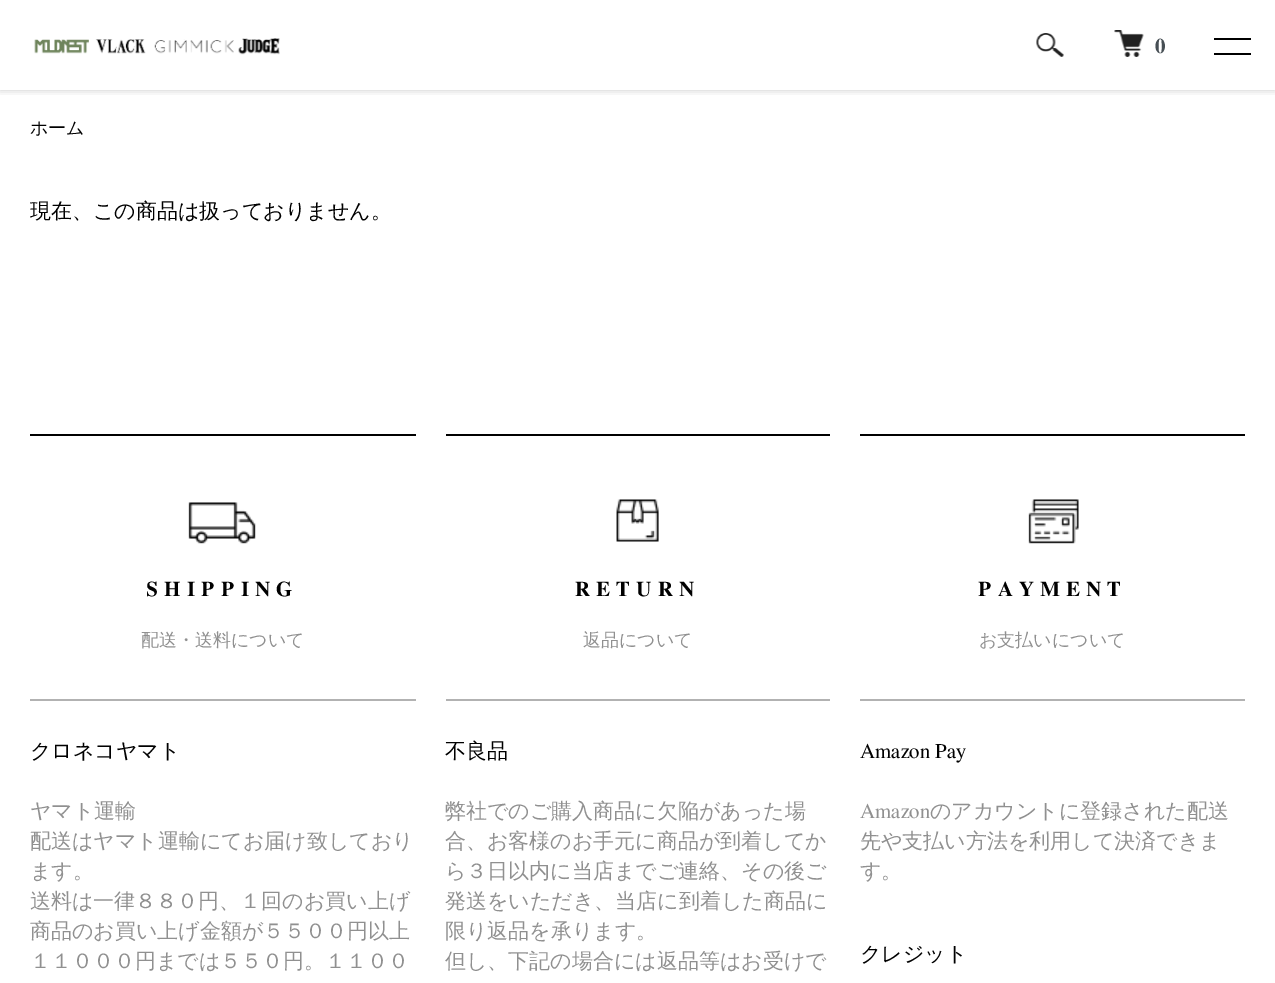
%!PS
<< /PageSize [1275 983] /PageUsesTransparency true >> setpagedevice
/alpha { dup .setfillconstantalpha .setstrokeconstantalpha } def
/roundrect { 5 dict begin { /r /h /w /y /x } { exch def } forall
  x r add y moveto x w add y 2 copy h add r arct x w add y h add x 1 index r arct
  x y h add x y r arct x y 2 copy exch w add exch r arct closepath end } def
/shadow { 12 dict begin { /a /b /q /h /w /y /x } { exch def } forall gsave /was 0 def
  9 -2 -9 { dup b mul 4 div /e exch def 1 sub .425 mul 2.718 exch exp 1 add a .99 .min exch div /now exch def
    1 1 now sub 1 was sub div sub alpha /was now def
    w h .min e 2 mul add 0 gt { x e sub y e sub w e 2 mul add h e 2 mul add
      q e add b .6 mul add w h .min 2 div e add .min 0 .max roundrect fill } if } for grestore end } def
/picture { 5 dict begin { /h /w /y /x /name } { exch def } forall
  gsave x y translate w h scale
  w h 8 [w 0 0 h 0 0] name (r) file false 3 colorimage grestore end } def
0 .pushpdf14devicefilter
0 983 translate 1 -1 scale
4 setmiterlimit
1 setgray
0 0 1275 983 rectfill
gsave
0 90 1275 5 rectclip
0 setgray
0 0 1275 90 0 4 0.2 shadow
grestore
(img1.rgb) 34 38 246 17 picture
(img2.rgb) 1036 33 28 24 picture
(img3.rgb) 1114 30 30 27 picture
/FreeSerif-Bold [21 0 0 -21 0 0] selectfont
0.275 0.306 0.329 setrgbcolor
1155 53 moveto (0) show
0 setgray
1214 38 37 2 rectfill
1214 53 37 2 rectfill
/WenQuanYiZenHei-Medium [18 0 0 -18 0 0] selectfont
30 134 moveto (ホーム) show
/WenQuanYiZenHei-Medium [21 0 0 -21 0 0] selectfont
30 218 moveto (現在、この商品は扱っておりません。) show
30 434 386 2 rectfill
0.698 setgray
30 699 386 2 rectfill
(img4.rgb) 188 502 68 42 picture
/FreeSerif-Bold [21 0 0 -21 0 0] selectfont
0 setgray
146 596 moveto 6.25 0 (SHIPPING) ashow
/WenQuanYiZenHei-Medium [18 0 0 -18 0 0] selectfont
0.565 setgray
141 646 moveto (配送・送料について) show
/WenQuanYiZenHei-Medium [21 0 0 -21 0 0] selectfont
0 setgray
30 758 moveto (クロネコヤマト) show
0.565 setgray
30 818 moveto (ヤマト運輸) show
30 848 moveto (配送はヤマト運輸にてお届け致しており) show
30 878 moveto (ます。) show
30 908 moveto (送料は一律８８０円、１回のお買い上げ) show
30 938 moveto (商品のお買い上げ金額が５５００円以上) show
30 968 moveto (１１０００円までは５５０円。１１００) show
0 setgray
446 434 384 2 rectfill
0.698 setgray
446 699 384 2 rectfill
(img5.rgb) 616 499 43 43 picture
/FreeSerif-Bold [21 0 0 -21 0 0] selectfont
0 setgray
575 596 moveto 6.25 0 (RETURN) ashow
/WenQuanYiZenHei-Medium [18 0 0 -18 0 0] selectfont
0.565 setgray
583 646 moveto (返品について) show
/WenQuanYiZenHei-Medium [21 0 0 -21 0 0] selectfont
0 setgray
445 758 moveto (不良品) show
0.565 setgray
445 818 moveto (弊社でのご購入商品に欠陥があった場) show
445 848 moveto (合、お客様のお手元に商品が到着してか) show
445 878 moveto (ら３日以内に当店までご連絡、その後ご) show
445 908 moveto (発送をいただき、当店に到着した商品に) show
445 938 moveto (限り返品を承ります。) show
445 968 moveto (但し、下記の場合には返品等はお受けで) show
0 setgray
860 434 385 2 rectfill
0.698 setgray
860 699 385 2 rectfill
(img6.rgb) 1028 499 51 45 picture
/FreeSerif-Bold [21 0 0 -21 0 0] selectfont
0 setgray
978 596 moveto 6.25 0 (PAYMENT) ashow
/WenQuanYiZenHei-Medium [18 0 0 -18 0 0] selectfont
0.565 setgray
979 646 moveto (お支払いについて) show
/FreeSerif-Regular [21 0 0 -21 0 0] selectfont
0 setgray
860 758 moveto (Amazon Pay) show
0.565 setgray
860 818 moveto (Amazon) show
/WenQuanYiZenHei-Medium [21 0 0 -21 0 0] selectfont
930 818 moveto (のアカウントに登録された配送) show
860 848 moveto (先や支払い方法を利用して決済できま) show
860 878 moveto (す。) show
0 setgray
860 961 moveto (クレジット) show
.poppdf14devicefilter showpage
